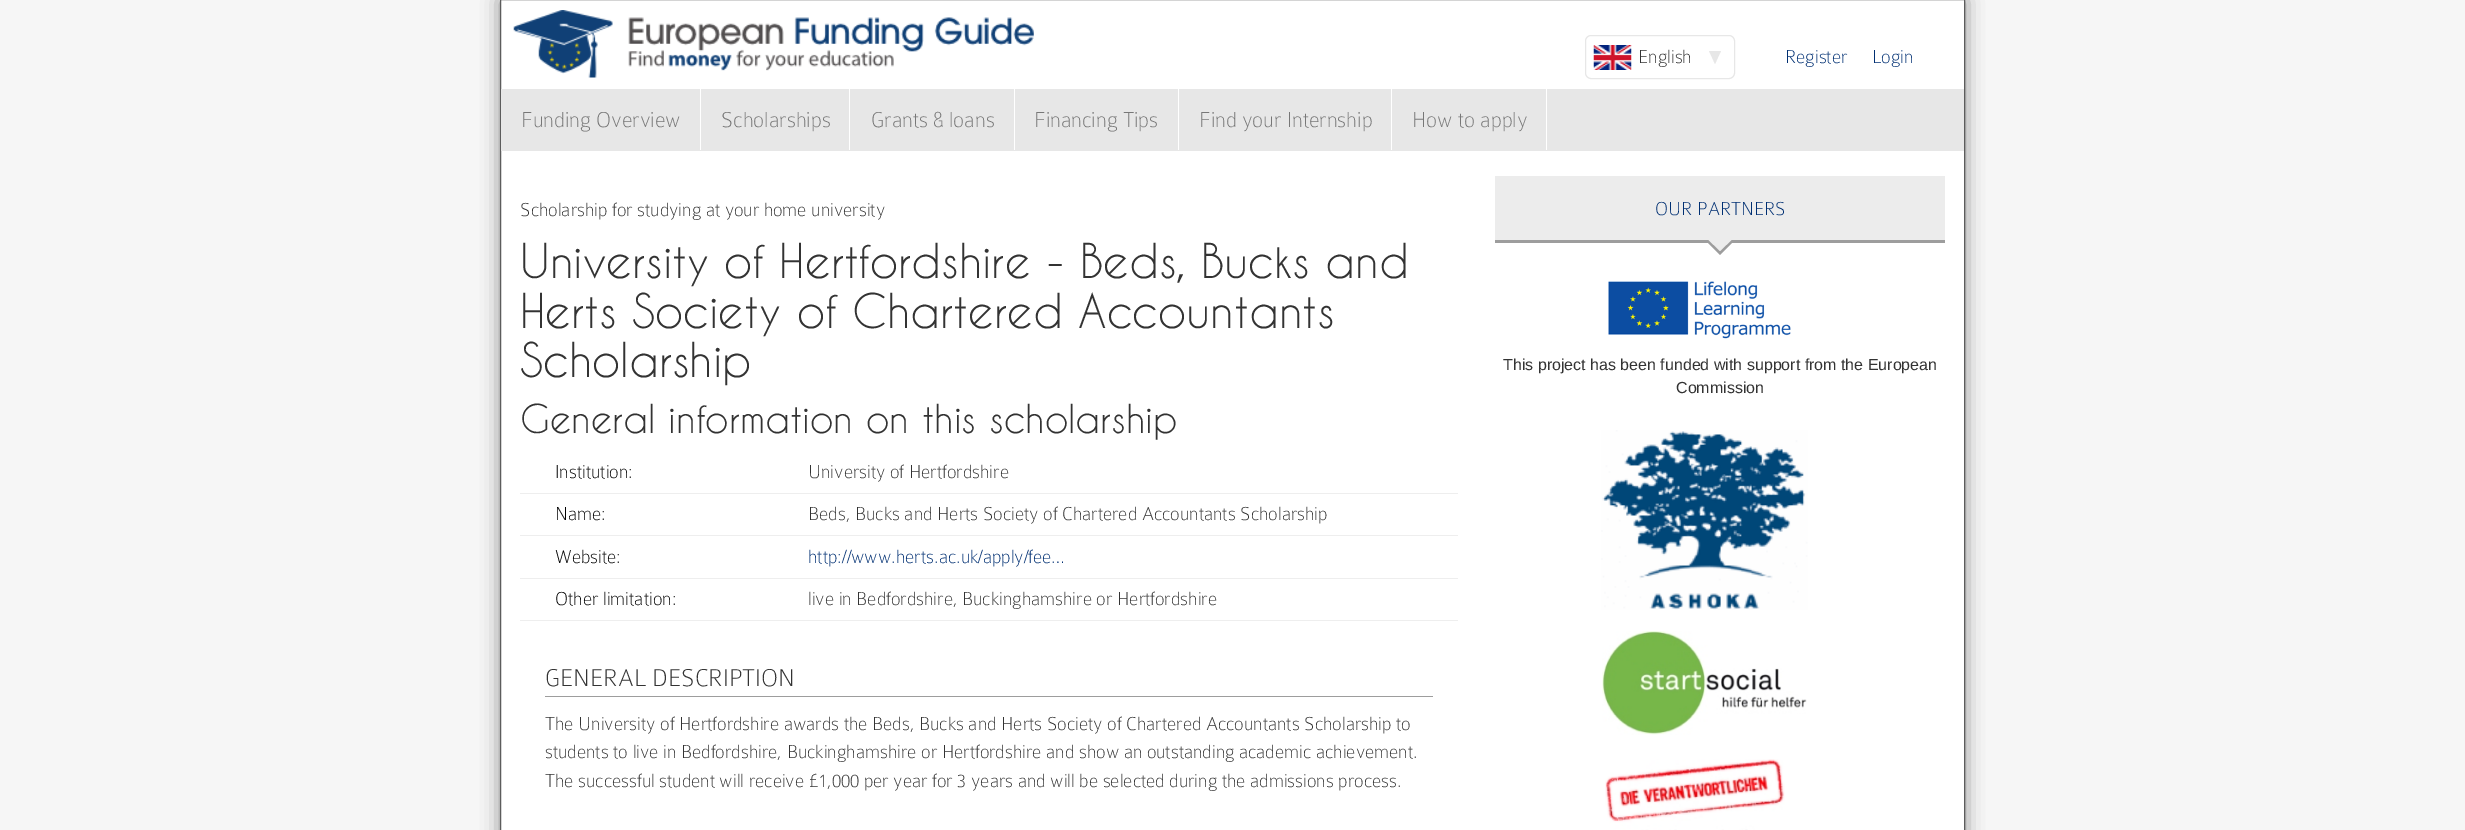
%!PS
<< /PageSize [2465 830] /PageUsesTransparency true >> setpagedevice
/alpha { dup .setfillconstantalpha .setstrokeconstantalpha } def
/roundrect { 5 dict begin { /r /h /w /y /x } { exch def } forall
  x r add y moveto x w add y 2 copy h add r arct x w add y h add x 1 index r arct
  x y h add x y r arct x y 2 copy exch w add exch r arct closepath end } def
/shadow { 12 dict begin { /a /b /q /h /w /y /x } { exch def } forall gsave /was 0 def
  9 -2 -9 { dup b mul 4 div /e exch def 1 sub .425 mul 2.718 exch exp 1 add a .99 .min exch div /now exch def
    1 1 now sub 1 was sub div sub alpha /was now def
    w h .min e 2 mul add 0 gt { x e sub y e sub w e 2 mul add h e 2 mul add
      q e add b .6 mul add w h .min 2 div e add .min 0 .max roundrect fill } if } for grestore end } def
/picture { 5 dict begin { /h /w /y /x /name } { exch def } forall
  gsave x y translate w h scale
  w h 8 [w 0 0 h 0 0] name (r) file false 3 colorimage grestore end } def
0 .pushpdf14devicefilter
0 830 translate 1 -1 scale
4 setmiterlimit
0.965 setgray
0 0 2465 830 rectfill
0 setgray
501 0 1463 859 0 9.5 0.5 shadow
1 setgray
newpath 500.5 -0.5 moveto 1964.5 -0.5 lineto 1964.5 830.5 lineto 500.5 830.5 lineto closepath gsave fill grestore
0.361 setgray
stroke
(img1.rgb) 513 10 521 68 picture
0.906 setgray
1585.5 35.5 149 43 5.5 roundrect stroke
(img2.rgb) 1593 45 39 25 picture
/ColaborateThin-Thin [20 0 0 -20 0 0] selectfont
0.2 setgray
1638 63 moveto (English) show
0.906 setgray
newpath 1709 51 moveto 1721 51 lineto 1715 64 lineto closepath fill
501 89 1463 62 rectfill
1 setgray
700 89 1 62 rectfill
0.906 setgray
700 150 1 1 rectfill
/ColaborateThin-Thin [23 0 0 -23 0 0] selectfont
0.467 setgray
521 127 moveto (Funding Overview) show
1 setgray
849 89 1 62 rectfill
0.906 setgray
849 150 1 1 rectfill
0.467 setgray
721 127 moveto (Scholarships) show
1 setgray
1014 89 1 62 rectfill
0.906 setgray
1014 150 1 1 rectfill
0.467 setgray
871 127 moveto (Grants & loans) show
1 setgray
1178 89 1 62 rectfill
0.906 setgray
1178 150 1 1 rectfill
0.467 setgray
1034 127 moveto (Financing Tips) show
1 setgray
1391 89 1 62 rectfill
0.906 setgray
1391 150 2 1 rectfill
0.467 setgray
1199 127 moveto (Find your Internship) show
1 setgray
1546 89 1 62 rectfill
0.906 setgray
1546 150 2 1 rectfill
0.467 setgray
1412 127 moveto (How to apply) show
/ColaborateThin-Thin [20 0 0 -20 0 0] selectfont
0 0.184 0.447 setrgbcolor
1785 63 moveto (Register) show
1872 63 moveto (Login) show
0.2 setgray
520 216 moveto (Scholarship for studying at your home university) show
/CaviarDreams-Regular [45 0 0 -45 0 0] selectfont
520 278 moveto (University of Hertfordshire - Beds, Bucks and) show
520 328 moveto (Herts Society of Chartered Accountants) show
520 377 moveto (Scholarship) show
/CaviarDreams-Regular [37.5 0 0 -37.5 0 0] selectfont
520 433 moveto (General information on this scholarship) show
0.933 setgray
520 493 938 1 rectfill
/ColaborateThin-Thin [20 0 0 -20 0 0] selectfont
0 setgray
555 478 moveto (Institution:) show
0.2 setgray
808 478 moveto (University of Hertfordshire) show
0.933 setgray
520 535 938 1 rectfill
0 setgray
555 520 moveto (Name:) show
0.2 setgray
808 520 moveto (Beds, Bucks and Herts Society of Chartered Accountants Scholarship) show
0.933 setgray
520 578 938 1 rectfill
0 setgray
555 563 moveto (Website:) show
0 0.184 0.447 setrgbcolor
808 563 moveto (http://www.herts.ac.uk/apply/fee…) show
0.933 setgray
520 620 938 1 rectfill
0 setgray
555 605 moveto (Other limitation:) show
0.2 setgray
808 605 moveto (live in Bedfordshire, Buckinghamshire or Hertfordshire) show
0.616 setgray
545 696 888 1 rectfill
/ColaborateThin-Thin [26 0 0 -26 0 0] selectfont
0.2 setgray
545 686 moveto (GENERAL DESCRIPTION) show
/ColaborateThin-Thin [20 0 0 -20 0 0] selectfont
545 730 moveto (The University of Hertfordshire awards the Beds, Bucks and Herts Society of Chartered Accountants Scholarship to) show
545 758 moveto (students to live in Bedfordshire, Buckinghamshire or Hertfordshire and show an outstanding academic achievement.) show
545 787 moveto (The successful student will receive £1,000 per year for 3 years and will be selected during the admissions process.) show
0.925 setgray
1495 176 450 64 rectfill
0.616 setgray
1495 240 450 3 rectfill
0 0.184 0.447 setrgbcolor
1655 215 moveto (OUR PARTNERS) show
0.616 setgray
newpath 1705 240 moveto 1735 240 lineto 1720 255 lineto closepath fill
0.925 setgray
newpath 1707.5 239 moveto 1732.5 239 lineto 1720 251 lineto closepath fill
(img3.rgb) 1608 281 183 58 picture
/LiberationSans-Regular [16 0 0 -16 0 0] selectfont
0.2 setgray
1503 370 moveto (This project has been funded with support from the European) show
1676 393 moveto (Commission) show
(img4.rgb) 1601 430 207 180 picture
(img5.rgb) 1602 631 205 104 picture
(img6.rgb) 1605 759 180 71 picture
.poppdf14devicefilter showpage
